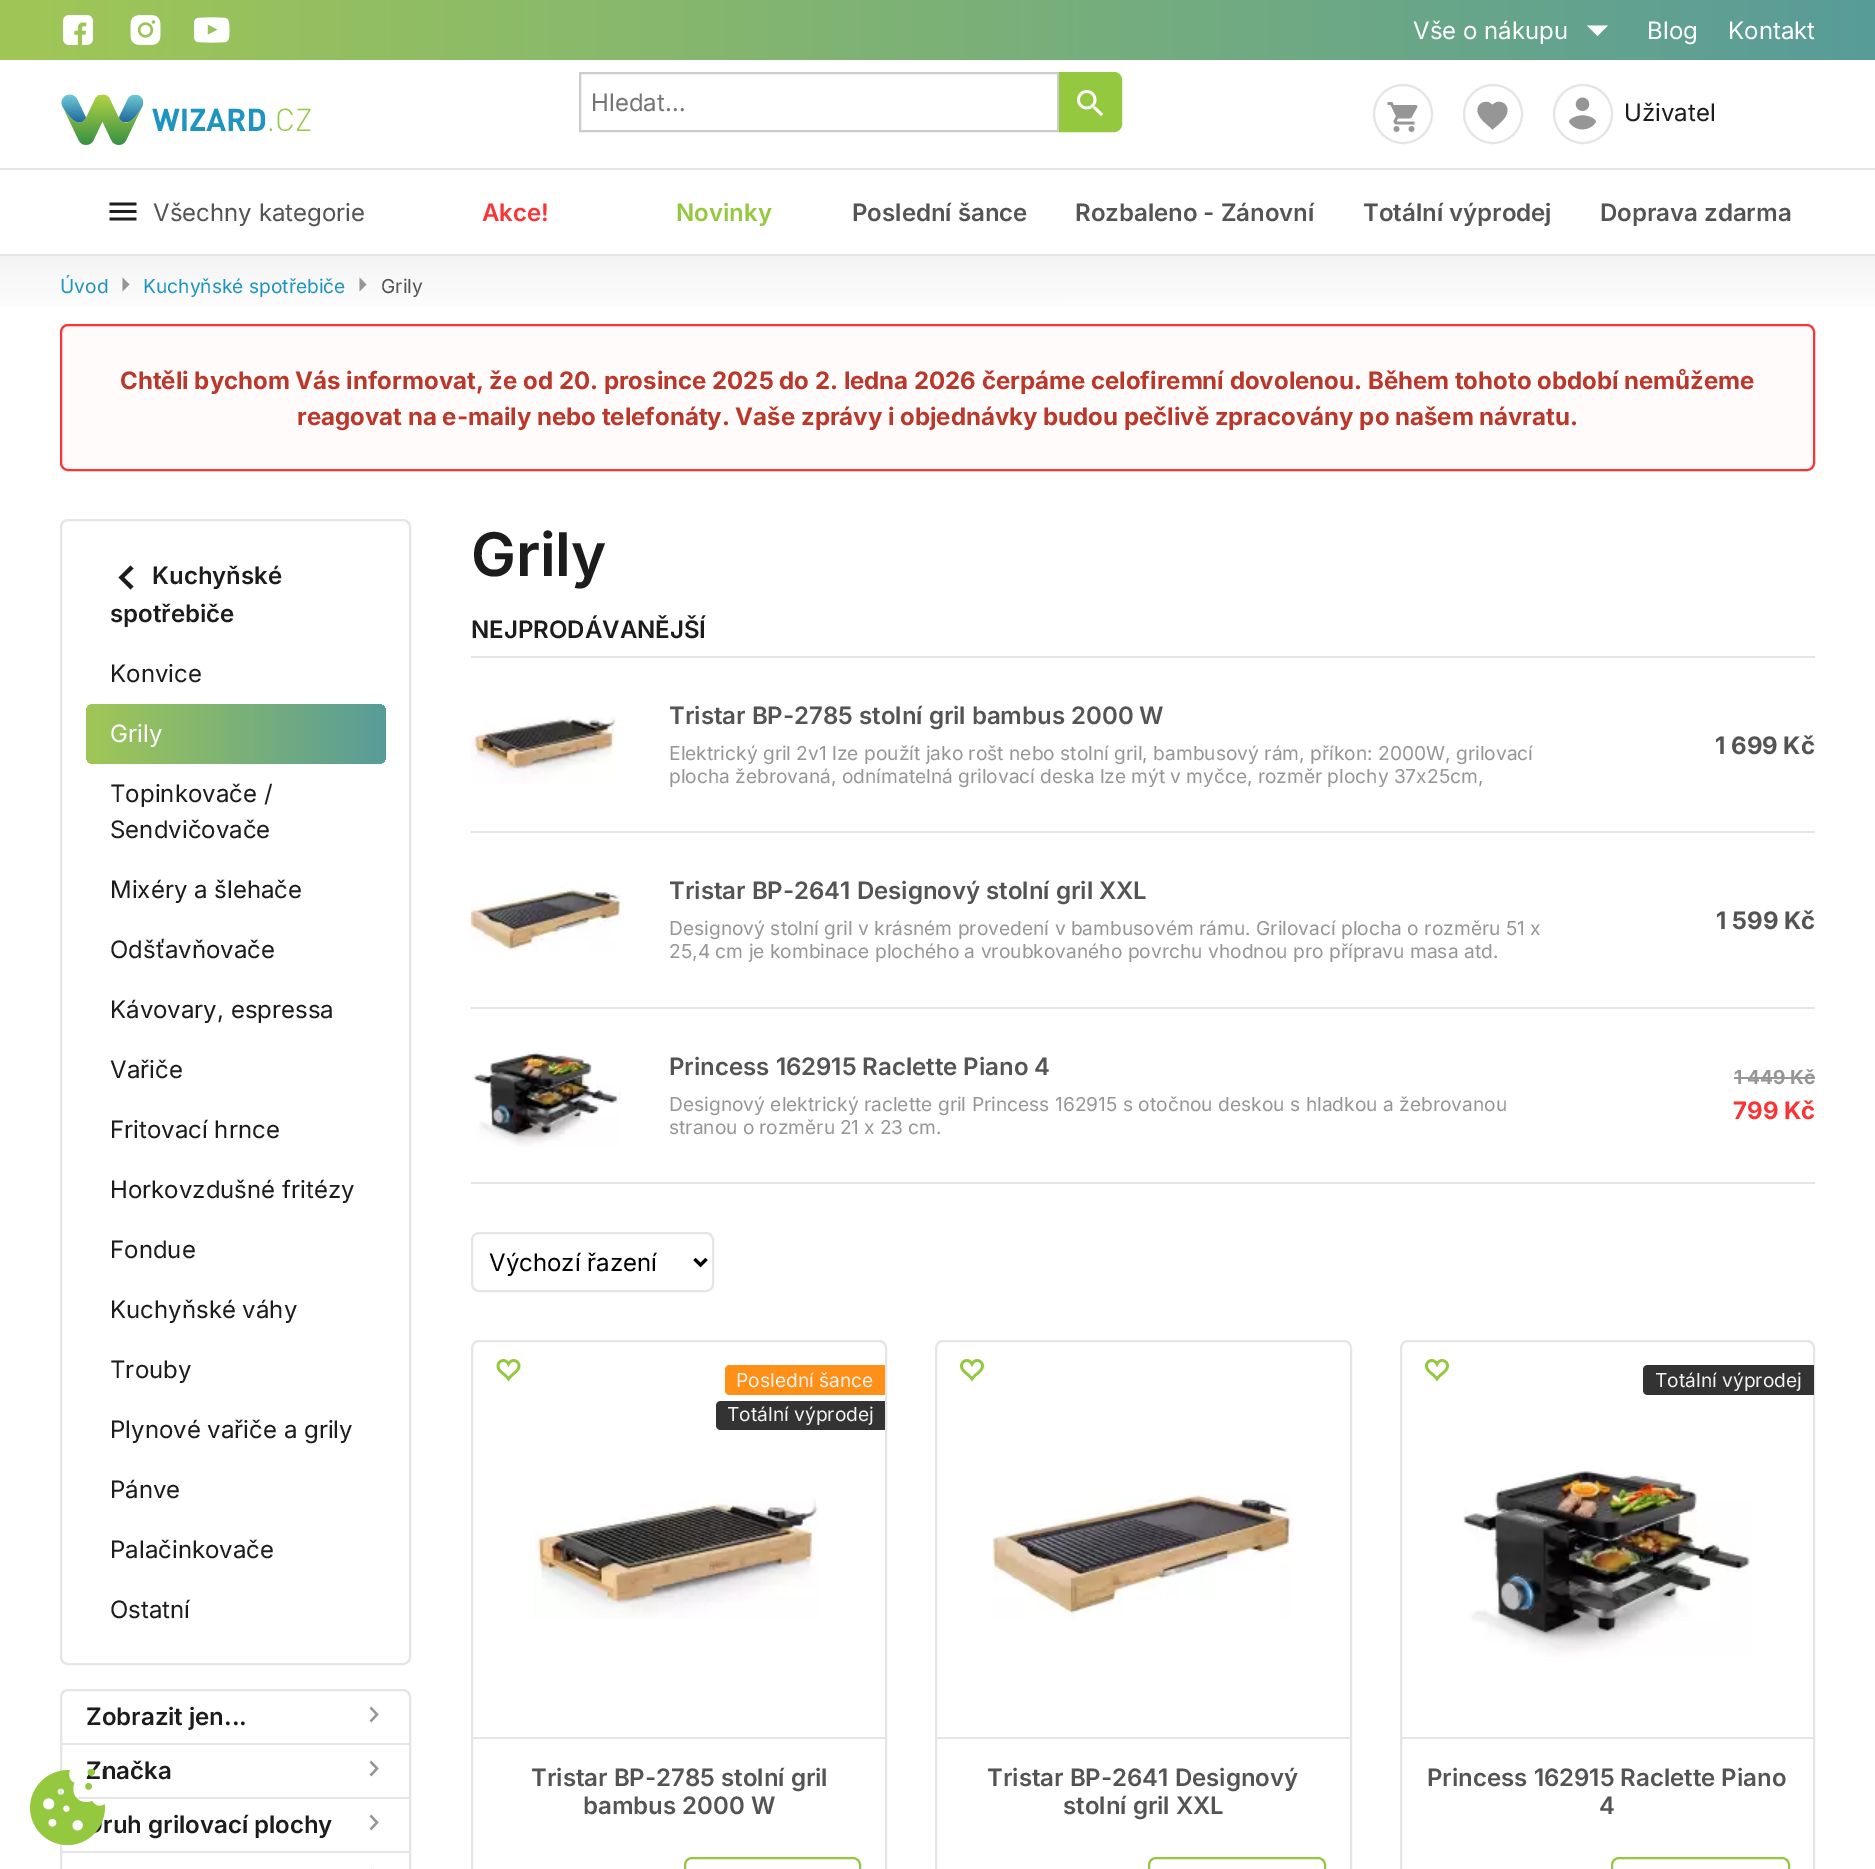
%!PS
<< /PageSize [1875 1869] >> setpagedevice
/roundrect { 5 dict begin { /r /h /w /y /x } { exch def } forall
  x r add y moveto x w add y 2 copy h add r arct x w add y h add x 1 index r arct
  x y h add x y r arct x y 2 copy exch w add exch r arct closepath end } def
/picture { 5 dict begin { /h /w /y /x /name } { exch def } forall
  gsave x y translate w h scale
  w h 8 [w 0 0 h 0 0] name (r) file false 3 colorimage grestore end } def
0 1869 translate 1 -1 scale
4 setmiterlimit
1 setgray
0 0 1875 1869 rectfill
gsave newpath 0 0 moveto 1875 0 lineto 1875 60 lineto 0 60 lineto closepath clip newpath
<< /ShadingType 2 /ColorSpace /DeviceRGB /Coords [0 30 1875 30] /Extend [true true] /Function << /FunctionType 2 /Domain [0 1] /C0 [0.627 0.78 0.333] /C1 [0.345 0.612 0.6] /N 1 >> >> shfill grestore
(img1.rgb) 63 15 30 30 picture
(img2.rgb) 130 15 31 30 picture
(img3.rgb) 194 17 36 26 picture
/Inter-Regular [24 0 0 -24 0 0] selectfont
1413 39 moveto (Vše o nákupu) show
newpath 1587 25.5 moveto 1597.5 36 lineto 1608 25.5 lineto closepath fill
1647 39 moveto (Blog) show
1728 39 moveto (Kontakt) show
(img4.rgb) 61 94 250 51 picture
0.8 setgray
2 setlinewidth
580 73 478 58 rectstroke
0.459 setgray
591 111 moveto (Hledat…) show
0.58 0.784 0.247 setrgbcolor
newpath 1060 73 moveto 1114 73 lineto 1118 73 1121 76 1121 80 curveto 1121 124 lineto 1121 128 1118 131 1114 131 curveto 1060 131 lineto closepath gsave fill grestore
stroke
(img5.rgb) 1077 90 27 27 picture
0.898 setgray
newpath 1403 114 29 0 360 arc closepath stroke
(img6.rgb) 1387 102 31 30 picture
newpath 1493 114 29 0 360 arc closepath stroke
0.588 setgray
newpath 1492.5 129.5 moveto 1488 125 1481 120.5 1478.5 114.5 curveto 1474 104.5 1486 97.5 1492.5 105 curveto 1499 97.5 1511 104.5 1506.5 114.5 curveto 1504 120.5 1497.5 125 1492.5 129.5 curveto closepath eofill
(img7.rgb) 1569 97 27 33 picture
0.898 setgray
newpath 1583 114 29 0 360 arc closepath stroke
0.11 setgray
1624 121 moveto (Uživatel) show
0.898 setgray
0 168 1875 2 rectfill
0 254 1875 2 rectfill
(img8.rgb) 109 202 28 19 picture
0.329 setgray
153 221 moveto (Všechny kategorie) show
/Inter-SemiBold [24 0 0 -24 0 0] selectfont
0.98 0.204 0.204 setrgbcolor
482 221 moveto (Akce!) show
0.58 0.784 0.247 setrgbcolor
676 221 moveto (Novinky) show
0.329 setgray
852 221 moveto (Poslední šance) show
1075 221 moveto (Rozbaleno - Zánovní) show
1363 221 moveto (Totální výprodej) show
1600 221 moveto (Doprava zdarma) show
gsave newpath 0 256 moveto 1875 256 lineto 1875 307 lineto 0 307 lineto closepath clip newpath
<< /ShadingType 2 /ColorSpace /DeviceRGB /Coords [937 248 938 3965] /Extend [true true] /Function << /FunctionType 3 /Domain [0 1] /Functions [<< /FunctionType 2 /Domain [0 1] /C0 [0.953 0.953 0.953] /C1 [1 1 1] /N 1 >> << /FunctionType 2 /Domain [0 1] /C0 [1 1 1] /C1 [1 1 1] /N 1 >> << /FunctionType 2 /Domain [0 1] /C0 [1 1 1] /C1 [0.953 0.953 0.953] /N 1 >>] /Bounds [0.02 0.75] /Encode [0 1 0 1 0 1] >> >> shfill grestore
/Inter-Regular [19.2 0 0 -19.2 0 0] selectfont
0.118 0.58 0.753 setrgbcolor
60 293 moveto (Úvod) show
0.588 setgray
newpath 122.5 277.5 moveto 129.5 284.5 lineto 122.5 291.5 lineto closepath eofill
0.118 0.58 0.753 setrgbcolor
143 293 moveto (Kuchyňské spotřebiče) show
0.588 setgray
newpath 359.5 277.5 moveto 366.5 284.5 lineto 359.5 291.5 lineto closepath eofill
0.329 setgray
381 293 moveto (Grily) show
1 0.984 0.984 setrgbcolor
61 325 1753 145 7 roundrect gsave fill grestore
0.98 0.204 0.204 setrgbcolor
stroke
/Inter-Bold [24 0 0 -24 0 0] selectfont
0.729 0.216 0.165 setrgbcolor
120 389 moveto (Chtěli bychom Vás informovat, že od 20. prosince 2025 do 2. ledna 2026 čerpáme celofiremní dovolenou. Během tohoto období nemůžeme) show
297 425 moveto (reagovat na e-maily nebo telefonáty. Vaše zprávy i objednávky budou pečlivě zpracovány po našem návratu.) show
0.898 setgray
61 520 349 1144 7 roundrect stroke
0.11 setgray
newpath 130.5 565.5 moveto 133.5 568.5 lineto 124 577.5 lineto 133.5 586.5 lineto 130.5 589.5 lineto 118.5 577.5 lineto closepath eofill
/Inter-SemiBold [24 0 0 -24 0 0] selectfont
152 584 moveto (Kuchyňské) show
110 622 moveto (spotřebiče) show
/Inter-Regular [24 0 0 -24 0 0] selectfont
110 682 moveto (Konvice) show
gsave 86 704 300 60 8 roundrect clip newpath
<< /ShadingType 2 /ColorSpace /DeviceRGB /Coords [86 734 386 734] /Extend [true true] /Function << /FunctionType 2 /Domain [0 1] /C0 [0.627 0.78 0.333] /C1 [0.345 0.612 0.6] /N 1 >> >> shfill grestore
1 setgray
110 742 moveto (Grily) show
0.11 setgray
110 802 moveto (Topinkovače /) show
110 838 moveto (Sendvičovače) show
110 898 moveto (Mixéry a šlehače) show
110 958 moveto (Odšťavňovače) show
110 1018 moveto (Kávovary, espressa) show
110 1078 moveto (Vařiče) show
110 1138 moveto (Fritovací hrnce) show
110 1198 moveto (Horkovzdušné fritézy) show
110 1258 moveto (Fondue) show
110 1318 moveto (Kuchyňské váhy) show
110 1378 moveto (Trouby) show
110 1438 moveto (Plynové vařiče a grily) show
110 1498 moveto (Pánve) show
110 1558 moveto (Palačinkovače) show
110 1618 moveto (Ostatní) show
0.898 setgray
61 1690 349 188 7 roundrect stroke
/Inter-SemiBold [24 0 0 -24 0 0] selectfont
0.11 setgray
86 1725 moveto (Zobrazit jen...) show
(img9.rgb) 369 1706 10 17 picture
0.898 setgray
62 1743 348 2 rectfill
0.11 setgray
86 1779 moveto (Značka) show
(img9.rgb) 369 1760 10 17 picture
0.898 setgray
75 1797 335 2 rectfill
0.11 setgray
103 1833 moveto (ruh grilovací plochy) show
(img9.rgb) 369 1814 10 17 picture
0.898 setgray
62 1851 348 2 rectfill
0.91 setgray
371 1868 1 1 rectfill
/Inter-SemiBold [60 0 0 -60 0 0] selectfont
0.11 setgray
471 576 moveto (Grily) show
/Inter-SemiBold [24 0 0 -24 0 0] selectfont
471 638 moveto (NEJPRODÁVANĚJŠÍ) show
0.898 setgray
471 656 1344 2 rectfill
471 831 1344 2 rectfill
(img10.rgb) 471 715 145 69 picture
0.329 setgray
669 724 moveto (Tristar BP-2785 stolní gril bambus 2000 W) show
/Inter-Regular [19.2 0 0 -19.2 0 0] selectfont
0.588 setgray
669 760 moveto (Elektrický gril 2v1 lze použít jako rošt nebo stolní gril, bambusový rám, příkon: 2000W, grilovací) show
669 783 moveto -0.25 0 32 (plocha žebrovaná, odnímatelná grilovací deska lze mýt v myčce, rozměr plochy 37x25cm,) widthshow
/Inter-Bold [24 0 0 -24 0 0] selectfont
0.329 setgray
1715 754 moveto (1 699 Kč) show
0.898 setgray
471 1007 1344 2 rectfill
(img11.rgb) 471 887 150 65 picture
/Inter-SemiBold [24 0 0 -24 0 0] selectfont
0.329 setgray
669 899 moveto (Tristar BP-2641 Designový stolní gril XXL) show
/Inter-Regular [19.2 0 0 -19.2 0 0] selectfont
0.588 setgray
669 935 moveto (Designový stolní gril v krásném provedení v bambusovém rámu. Grilovací plocha o rozměru 51 x) show
669 958 moveto (25,4 cm je kombinace plochého a vroubkovaného povrchu vhodnou pro přípravu masa atd.) show
/Inter-Bold [24 0 0 -24 0 0] selectfont
0.329 setgray
1716 929 moveto (1 599 Kč) show
0.898 setgray
471 1182 1344 2 rectfill
(img12.rgb) 471 1050 150 96 picture
/Inter-SemiBold [24 0 0 -24 0 0] selectfont
0.329 setgray
669 1075 moveto (Princess 162915 Raclette Piano 4) show
/Inter-Regular [19.2 0 0 -19.2 0 0] selectfont
0.588 setgray
669 1111 moveto (Designový elektrický raclette gril Princess 162915 s otočnou deskou s hladkou a žebrovanou) show
669 1134 moveto -0.5 0 32 (stranou o rozměru 21 x 23 cm.) widthshow
/Inter-Bold [19.2 0 0 -19.2 0 0] selectfont
1734 1084 moveto (1 449 Kč) show
1734 1077 81 2 rectfill
/Inter-Bold [24 0 0 -24 0 0] selectfont
0.98 0.204 0.204 setrgbcolor
1733 1119 moveto (799 Kč) show
0.898 setgray
472 1233 241 58 7 roundrect stroke
0 setgray
3 setlinewidth
newpath 694.5 1259 moveto 700.5 1265 lineto 706.5 1259 lineto stroke
/Inter-Regular [24 0 0 -24 0 0] selectfont
489 1271 moveto (Výchozí řazení) show
0.898 setgray
2 setlinewidth
472 1341 414 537 7 roundrect stroke
(img13.rgb) 496 1359 25 23 picture
1 0.565 0.09 setrgbcolor
newpath 730 1365 moveto 885 1365 lineto 885 1395 lineto 730 1395 lineto 727 1395 725 1393 725 1390 curveto 725 1370 lineto 725 1367 727 1365 730 1365 curveto closepath fill
/Inter-Regular [19.2 0 0 -19.2 0 0] selectfont
0.953 setgray
736 1387 moveto (Poslední šance) show
0.2 setgray
newpath 721 1401 moveto 885 1401 lineto 885 1430 lineto 721 1430 lineto 718 1430 716 1428 716 1425 curveto 716 1406 lineto 716 1403 718 1401 721 1401 curveto closepath fill
0.953 setgray
727 1421 moveto (Totální výprodej) show
(img14.rgb) 530 1498 288 121 picture
0.898 setgray
473 1737 412 2 rectfill
/Inter-SemiBold [24 0 0 -24 0 0] selectfont
0.329 setgray
531 1786 moveto (Tristar BP-2785 stolní gril) show
583 1814 moveto (bambus 2000 W) show
0.58 0.784 0.247 setrgbcolor
685 1858 175 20 7 roundrect stroke
0.898 setgray
936 1341 415 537 7 roundrect stroke
(img15.rgb) 960 1359 24 23 picture
(img16.rgb) 993 1494 300 126 picture
936 1737 414 2 rectfill
0.329 setgray
987 1786 moveto (Tristar BP-2641 Designový) show
1063 1814 moveto (stolní gril XXL) show
0.58 0.784 0.247 setrgbcolor
1149 1858 176 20 7 roundrect stroke
0.898 setgray
1401 1341 413 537 7 roundrect stroke
(img15.rgb) 1425 1359 24 23 picture
0.2 setgray
newpath 1648 1365 moveto 1814 1365 lineto 1814 1395 lineto 1648 1395 lineto 1645 1395 1643 1393 1643 1390 curveto 1643 1370 lineto 1643 1367 1645 1365 1648 1365 curveto closepath fill
/Inter-Regular [19.2 0 0 -19.2 0 0] selectfont
0.953 setgray
1655 1387 moveto (Totální výprodej) show
(img17.rgb) 1463 1470 288 187 picture
0.898 setgray
1401 1737 413 2 rectfill
/Inter-SemiBold [24 0 0 -24 0 0] selectfont
0.329 setgray
1427 1786 moveto (Princess 162915 Raclette Piano) show
1599 1814 moveto (4) show
0.58 0.784 0.247 setrgbcolor
1612 1858 177 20 7 roundrect stroke
(img18.rgb) 30 1769 75 76 picture
showpage
